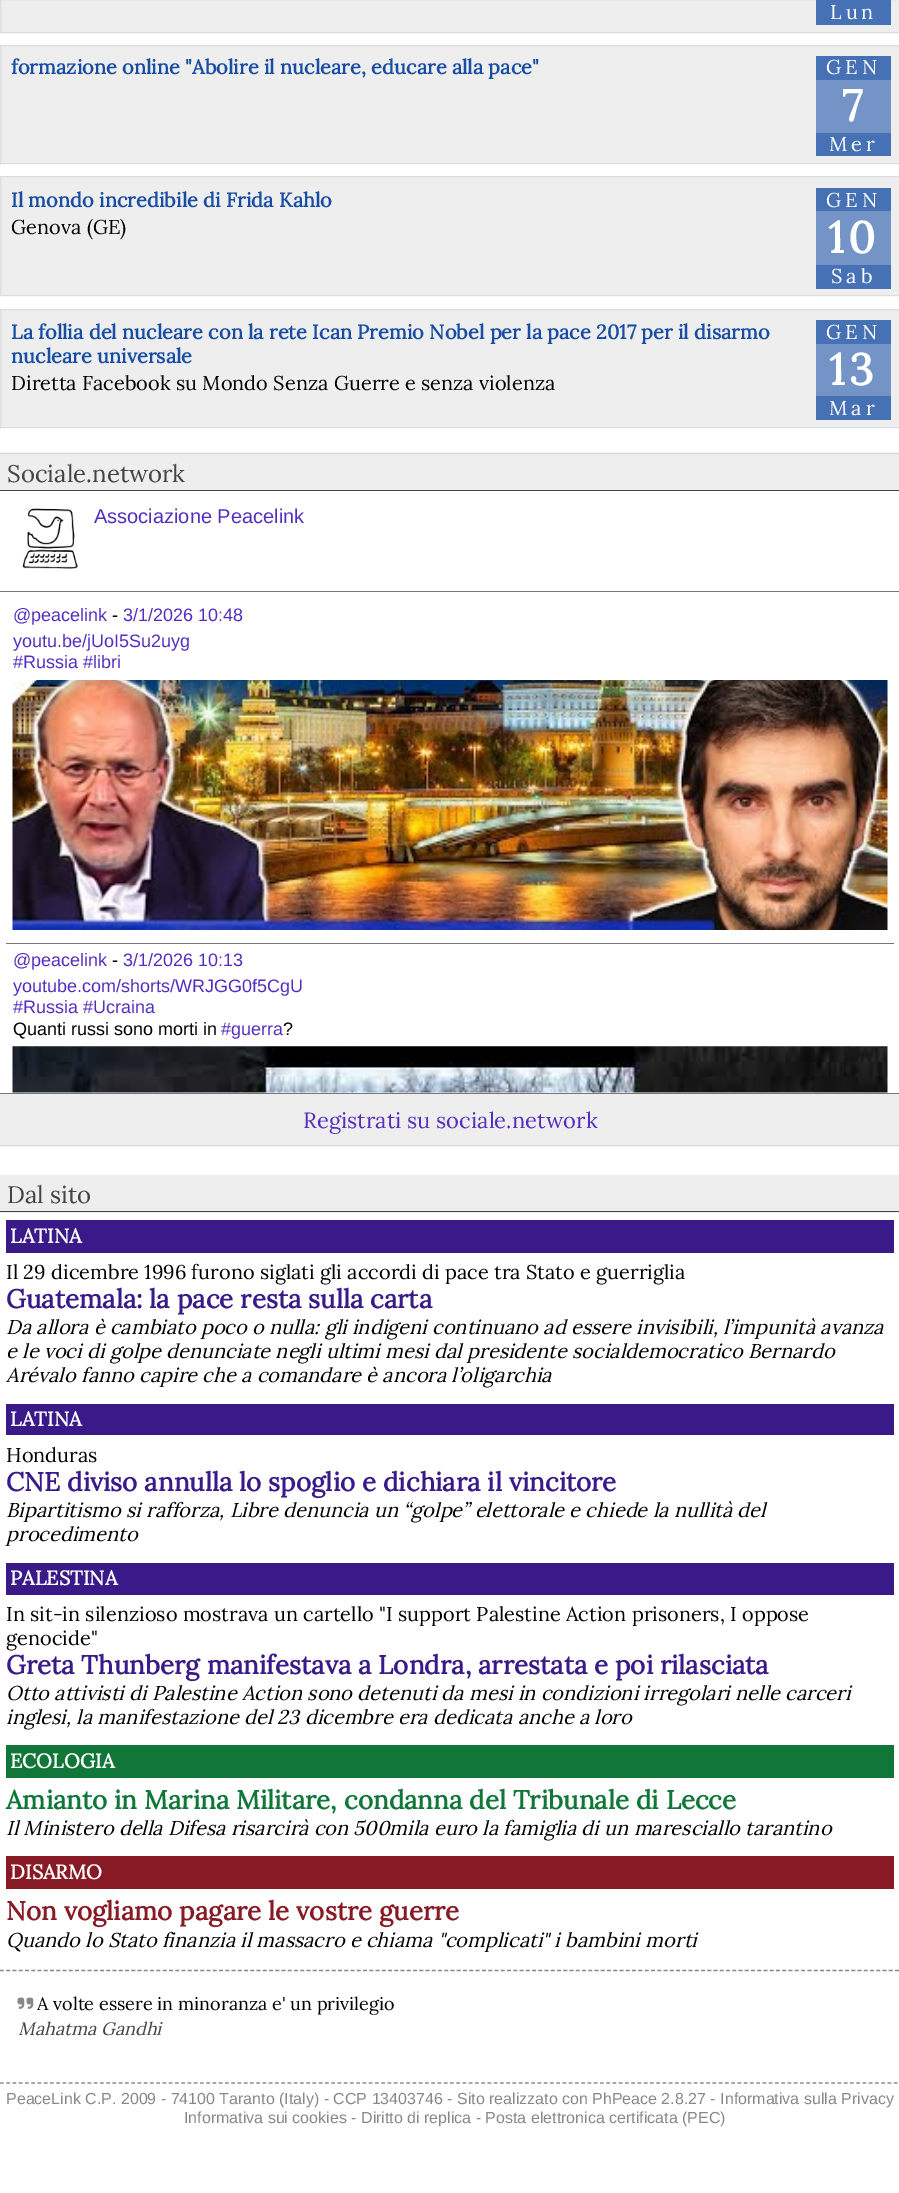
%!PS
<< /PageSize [899 2193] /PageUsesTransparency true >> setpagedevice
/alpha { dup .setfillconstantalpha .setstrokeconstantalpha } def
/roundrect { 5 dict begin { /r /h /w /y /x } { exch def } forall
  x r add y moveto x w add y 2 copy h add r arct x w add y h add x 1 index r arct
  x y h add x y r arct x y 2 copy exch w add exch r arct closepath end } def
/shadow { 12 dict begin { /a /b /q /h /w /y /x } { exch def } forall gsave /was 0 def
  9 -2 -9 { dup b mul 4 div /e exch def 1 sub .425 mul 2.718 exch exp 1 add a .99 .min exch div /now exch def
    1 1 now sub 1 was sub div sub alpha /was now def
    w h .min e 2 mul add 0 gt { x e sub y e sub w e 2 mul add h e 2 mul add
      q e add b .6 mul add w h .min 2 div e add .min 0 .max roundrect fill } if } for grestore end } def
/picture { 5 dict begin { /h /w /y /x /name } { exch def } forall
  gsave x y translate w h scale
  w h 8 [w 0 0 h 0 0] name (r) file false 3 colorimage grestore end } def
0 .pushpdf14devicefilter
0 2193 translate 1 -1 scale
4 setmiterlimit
1 setgray
0 0 899 2193 rectfill
0.933 setgray
newpath 0.5 -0.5 moveto 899.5 -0.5 lineto 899.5 32.5 lineto 0.5 32.5 lineto closepath gsave fill grestore
0.867 setgray
stroke
0.275 0.443 0.71 setrgbcolor
816 0 75 25 rectfill
/Lora-Regular [20 0 0 -20 0 0] selectfont
1 setgray
830 19 moveto 4 0 (Lun) ashow
0.933 setgray
newpath 0.5 45.5 moveto 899.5 45.5 lineto 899.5 163.5 lineto 0.5 163.5 lineto closepath gsave fill grestore
0.867 setgray
stroke
/Lora-Bold [20 0 0 -20 0 0] selectfont
0.094 0.302 0.639 setrgbcolor
11 74 moveto (formazione online "Abolire il nucleare, educare alla pace") show
0.275 0.443 0.71 setrgbcolor
816 56 75 24 rectfill
/Lora-Regular [20 0 0 -20 0 0] selectfont
1 setgray
826 74 moveto 4 0 (GEN) ashow
0.455 0.58 0.784 setrgbcolor
816 80 75 53 rectfill
/Lora-Bold [44 0 0 -44 0 0] selectfont
1 setgray
842 121 moveto 4 0 (7) ashow
0.275 0.443 0.71 setrgbcolor
816 133 75 23 rectfill
/Lora-Regular [20 0 0 -20 0 0] selectfont
1 setgray
829 151 moveto 4 0 (Mer) ashow
0.933 setgray
newpath 0.5 176.5 moveto 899.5 176.5 lineto 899.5 295.5 lineto 0.5 295.5 lineto closepath gsave fill grestore
0.867 setgray
stroke
/Lora-Bold [20 0 0 -20 0 0] selectfont
0.094 0.302 0.639 setrgbcolor
11 207 moveto (Il mondo incredibile di Frida Kahlo) show
0.275 0.443 0.71 setrgbcolor
816 188 75 23 rectfill
/Lora-Regular [20 0 0 -20 0 0] selectfont
1 setgray
826 207 moveto 4 0 (GEN) ashow
0.455 0.58 0.784 setrgbcolor
816 211 75 54 rectfill
/Lora-Bold [44 0 0 -44 0 0] selectfont
1 setgray
828 253 moveto 4 0 (10) ashow
0.275 0.443 0.71 setrgbcolor
816 265 75 24 rectfill
/Lora-Regular [20 0 0 -20 0 0] selectfont
1 setgray
831 283 moveto 4 0 (Sab) ashow
0 setgray
11 234 moveto (Genova \(GE\)) show
0.933 setgray
newpath 0.5 309.5 moveto 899.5 309.5 lineto 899.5 427.5 lineto 0.5 427.5 lineto closepath gsave fill grestore
0.867 setgray
stroke
/Lora-Bold [20 0 0 -20 0 0] selectfont
0.094 0.302 0.639 setrgbcolor
11 339 moveto (La follia del nucleare con la rete Ican Premio Nobel per la pace 2017 per il disarmo) show
11 363 moveto (nucleare universale) show
0.275 0.443 0.71 setrgbcolor
816 320 75 24 rectfill
/Lora-Regular [20 0 0 -20 0 0] selectfont
1 setgray
826 339 moveto 4 0 (GEN) ashow
0.455 0.58 0.784 setrgbcolor
816 344 75 52 rectfill
/Lora-Bold [44 0 0 -44 0 0] selectfont
1 setgray
829 385 moveto 4 0 (13) ashow
0.275 0.443 0.71 setrgbcolor
816 396 75 24 rectfill
/Lora-Regular [20 0 0 -20 0 0] selectfont
1 setgray
829 415 moveto 4 0 (Mar) ashow
0 setgray
11 390 moveto (Diretta Facebook su Mondo Senza Guerre e senza violenza) show
gsave
newpath 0 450 moveto 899 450 lineto 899 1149 lineto 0 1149 lineto closepath 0 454 moveto 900 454 lineto 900 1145 lineto 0 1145 lineto closepath eoclip newpath
0 454 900 691 0 1 0.5 shadow
grestore
0.933 setgray
0 454 899 36 rectfill
0.267 setgray
0 490 899 1 rectfill
/Lora-Regular [24 0 0 -24 0 0] selectfont
7 482 moveto (Sociale.network) show
0.467 setgray
0 591 899 1 rectfill
(img1.rgb) 22 508 56 61 picture
/LiberationSans-Regular [20 0 0 -20 0 0] selectfont
0.329 0.18 0.749 setrgbcolor
94 523 moveto (Associazione Peacelink) show
/LiberationSans-Regular [18 0 0 -18 0 0] selectfont
13 621 moveto (@peacelink) show
0 setgray
112 621 moveto (-) show
0.329 0.18 0.749 setrgbcolor
123 621 moveto (3/1/2026 10:48) show
13 647 moveto (youtu.be/jUoI5Su2uyg) show
13 668 moveto (#Russia #libri) show
(img2.rgb) 12 680 876 250 picture
0.467 setgray
6 943 888 1 rectfill
0.329 0.18 0.749 setrgbcolor
13 966 moveto (@peacelink) show
0 setgray
112 966 moveto (-) show
0.329 0.18 0.749 setrgbcolor
123 966 moveto (3/1/2026 10:13) show
13 992 moveto (youtube.com/shorts/WRJGG0f5CgU) show
13 1013 moveto (#Russia #Ucraina) show
0 setgray
13 1035 moveto (Quanti russi sono morti in) show
0.329 0.18 0.749 setrgbcolor
221 1035 moveto (#guerra) show
0 setgray
283 1035 moveto (?) show
(img3.rgb) 12 1046 876 47 picture
0.933 setgray
0 1094 899 51 rectfill
0.467 setgray
0 1093 899 1 rectfill
/Lora-Regular [22 0 0 -22 0 0] selectfont
0.329 0.18 0.749 setrgbcolor
303 1128 moveto (Registrati su sociale.network) show
0.933 setgray
0 1175 899 38 rectfill
0.267 setgray
0 1211 899 1 rectfill
/Lora-Regular [24 0 0 -24 0 0] selectfont
7 1203 moveto (Dal sito) show
0.224 0.102 0.533 setrgbcolor
6 1220 888 33 rectfill
/Lora-Bold [20 0 0 -20 0 0] selectfont
1 setgray
10 1243 moveto (LATINA) show
/Lora-Regular [20 0 0 -20 0 0] selectfont
0 setgray
6 1279 moveto (Il 29 dicembre 1996 furono siglati gli accordi di pace tra Stato e guerriglia) show
/Lora-Bold [26 0 0 -26 0 0] selectfont
0.224 0.102 0.533 setrgbcolor
6 1308 moveto (Guatemala: la pace resta sulla carta) show
/Lora-Italic [20 0 0 -20 0 0] selectfont
0 setgray
6 1334 moveto (Da allora è cambiato poco o nulla: gli indigeni continuano ad essere invisibili, l’impunità avanza) show
6 1358 moveto (e le voci di golpe denunciate negli ultimi mesi dal presidente socialdemocratico Bernardo) show
6 1382 moveto (Arévalo fanno capire che a comandare è ancora l’oligarchia) show
0.224 0.102 0.533 setrgbcolor
6 1404 888 31 rectfill
/Lora-Bold [20 0 0 -20 0 0] selectfont
1 setgray
10 1426 moveto (LATINA) show
/Lora-Regular [20 0 0 -20 0 0] selectfont
0 setgray
6 1462 moveto (Honduras) show
/Lora-Bold [26 0 0 -26 0 0] selectfont
0.224 0.102 0.533 setrgbcolor
6 1491 moveto (CNE diviso annulla lo spoglio e dichiara il vincitore) show
/Lora-Italic [20 0 0 -20 0 0] selectfont
0 setgray
6 1517 moveto (Bipartitismo si rafforza, Libre denuncia un “golpe” elettorale e chiede la nullità del) show
6 1541 moveto (procedimento) show
0.224 0.102 0.533 setrgbcolor
6 1563 888 32 rectfill
/Lora-Bold [20 0 0 -20 0 0] selectfont
1 setgray
10 1585 moveto (PALESTINA) show
/Lora-Regular [20 0 0 -20 0 0] selectfont
0 setgray
6 1621 moveto (In sit-in silenzioso mostrava un cartello "I support Palestine Action prisoners, I oppose) show
6 1645 moveto (genocide") show
/Lora-Bold [26 0 0 -26 0 0] selectfont
0.224 0.102 0.533 setrgbcolor
6 1674 moveto (Greta Thunberg manifestava a Londra, arrestata e poi rilasciata) show
/Lora-Italic [20 0 0 -20 0 0] selectfont
0 setgray
6 1700 moveto (Otto attivisti di Palestine Action sono detenuti da mesi in condizioni irregolari nelle carceri) show
6 1724 moveto (inglesi, la manifestazione del 23 dicembre era dedicata anche a loro) show
0.067 0.467 0.22 setrgbcolor
6 1745 888 33 rectfill
/Lora-Bold [20 0 0 -20 0 0] selectfont
1 setgray
10 1768 moveto (ECOLOGIA) show
/Lora-Bold [26 0 0 -26 0 0] selectfont
0.067 0.467 0.22 setrgbcolor
6 1809 moveto (Amianto in Marina Militare, condanna del Tribunale di Lecce) show
/Lora-Italic [20 0 0 -20 0 0] selectfont
0 setgray
6 1835 moveto (Il Ministero della Difesa risarcirà con 500mila euro la famiglia di un maresciallo tarantino) show
0.533 0.102 0.145 setrgbcolor
6 1856 888 33 rectfill
/Lora-Bold [20 0 0 -20 0 0] selectfont
1 setgray
10 1879 moveto (DISARMO) show
/Lora-Bold [26 0 0 -26 0 0] selectfont
0.533 0.102 0.145 setrgbcolor
6 1920 moveto (Non vogliamo pagare le vostre guerre) show
/Lora-Italic [20 0 0 -20 0 0] selectfont
0 setgray
6 1947 moveto (Quando lo Stato finanzia il massacro e chiama "complicati" i bambini morti) show
0.533 setgray
1.2 setlinewidth
[3.75 2.51] 0 setdash
newpath 0 1970.5 moveto 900 1970.5 lineto stroke
(img4.rgb) 17 1997 17 12 picture
/Lora-Regular [18 0 0 -18 0 0] selectfont
0 setgray
37 2010 moveto (A volte essere in minoranza e' un privilegio) show
/Lora-Italic [18 0 0 -18 0 0] selectfont
0.267 setgray
18 2035 moveto (Mahatma Gandhi) show
0.533 setgray
[3.75 2.5] 0 setdash
newpath 0 2083 moveto 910 2083 lineto stroke
/LiberationSans-Regular [16 0 0 -16 0 0] selectfont
6 2104 moveto (PeaceLink C.P. 2009 - 74100 Taranto \(Italy\) - CCP 13403746 - Sito realizzato con PhPeace 2.8.27 - Informativa sulla Privacy) show
184 2123 moveto (Informativa sui cookies - Diritto di replica - Posta elettronica certificata \(PEC\)) show
.poppdf14devicefilter showpage
